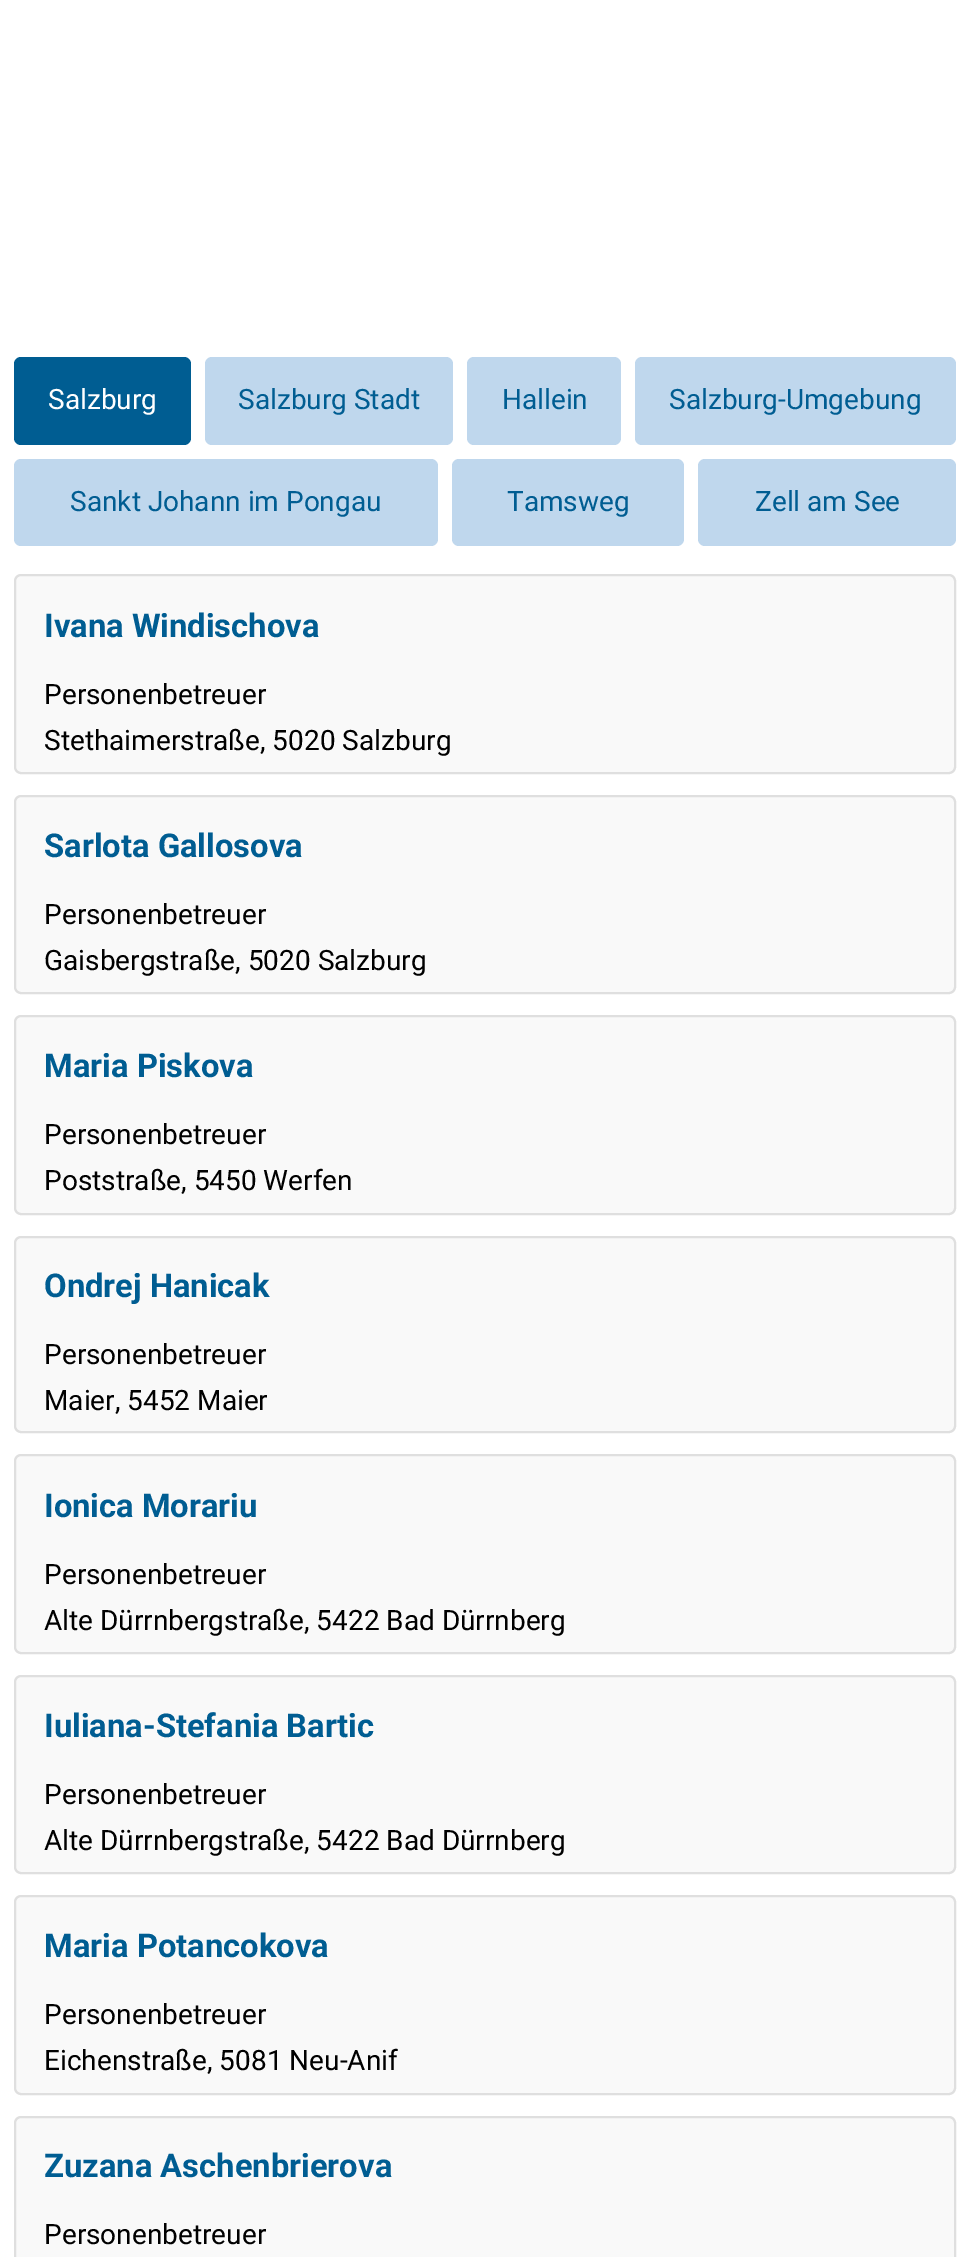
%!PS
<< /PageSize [968 2257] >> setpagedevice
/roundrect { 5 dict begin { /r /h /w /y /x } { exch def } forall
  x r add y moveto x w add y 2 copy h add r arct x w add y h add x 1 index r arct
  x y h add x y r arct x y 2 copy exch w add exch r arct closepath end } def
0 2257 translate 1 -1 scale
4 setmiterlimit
1 setgray
0 0 968 2257 rectfill
0 0.365 0.573 setrgbcolor
14 357 177 88 7 roundrect fill
/Roboto-Regular [28 0 0 -28 0 0] selectfont
1 setgray
48 409 moveto (Salzburg) show
0.749 0.843 0.929 setrgbcolor
205 357 248 88 7 roundrect fill
0 0.365 0.573 setrgbcolor
238 409 moveto (Salzburg Stadt) show
0.749 0.843 0.929 setrgbcolor
467 357 154 88 7 roundrect fill
0 0.365 0.573 setrgbcolor
502 409 moveto (Hallein) show
0.749 0.843 0.929 setrgbcolor
635 357 321 88 7 roundrect fill
0 0.365 0.573 setrgbcolor
669 409 moveto (Salzburg-Umgebung) show
0.749 0.843 0.929 setrgbcolor
14 459 424 87 7 roundrect fill
0 0.365 0.573 setrgbcolor
70 511 moveto (Sankt Johann im Pongau) show
0.749 0.843 0.929 setrgbcolor
452 459 232 87 7 roundrect fill
0 0.365 0.573 setrgbcolor
507 511 moveto (Tamsweg) show
0.749 0.843 0.929 setrgbcolor
698 459 258 87 7 roundrect fill
0 0.365 0.573 setrgbcolor
755 511 moveto (Zell am See) show
0.976 setgray
15 575 940 198 6 roundrect gsave fill grestore
0.875 setgray
2 setlinewidth
stroke
/Roboto-Bold [32.75 0 0 -32.75 0 0] selectfont
0 0.365 0.573 setrgbcolor
44 637 moveto (Ivana Windischova) show
/Roboto-Regular [28 0 0 -28 0 0] selectfont
0 setgray
44 704 moveto (Personenbetreuer) show
44 750 moveto (Stethaimerstraße, 5020 Salzburg) show
0.976 setgray
15 796 940 197 6 roundrect gsave fill grestore
0.875 setgray
stroke
/Roboto-Bold [32.75 0 0 -32.75 0 0] selectfont
0 0.365 0.573 setrgbcolor
44 857 moveto (Sarlota Gallosova) show
/Roboto-Regular [28 0 0 -28 0 0] selectfont
0 setgray
44 924 moveto (Personenbetreuer) show
44 970 moveto (Gaisbergstraße, 5020 Salzburg) show
0.976 setgray
15 1016 940 198 6 roundrect gsave fill grestore
0.875 setgray
stroke
/Roboto-Bold [32.75 0 0 -32.75 0 0] selectfont
0 0.365 0.573 setrgbcolor
44 1077 moveto (Maria Piskova) show
/Roboto-Regular [28 0 0 -28 0 0] selectfont
0 setgray
44 1144 moveto (Personenbetreuer) show
44 1190 moveto (Poststraße, 5450 Werfen) show
0.976 setgray
15 1237 940 195 6 roundrect gsave fill grestore
0.875 setgray
stroke
/Roboto-Bold [32.75 0 0 -32.75 0 0] selectfont
0 0.365 0.573 setrgbcolor
44 1297 moveto (Ondrej Hanicak) show
/Roboto-Regular [28 0 0 -28 0 0] selectfont
0 setgray
44 1364 moveto (Personenbetreuer) show
44 1410 moveto (Maier, 5452 Maier) show
0.976 setgray
15 1455 940 198 6 roundrect gsave fill grestore
0.875 setgray
stroke
/Roboto-Bold [32.75 0 0 -32.75 0 0] selectfont
0 0.365 0.573 setrgbcolor
44 1517 moveto (Ionica Morariu) show
/Roboto-Regular [28 0 0 -28 0 0] selectfont
0 setgray
44 1584 moveto (Personenbetreuer) show
44 1630 moveto (Alte Dürrnbergstraße, 5422 Bad Dürrnberg) show
0.976 setgray
15 1676 940 197 6 roundrect gsave fill grestore
0.875 setgray
stroke
/Roboto-Bold [32.75 0 0 -32.75 0 0] selectfont
0 0.365 0.573 setrgbcolor
44 1737 moveto (Iuliana-Stefania Bartic) show
/Roboto-Regular [28 0 0 -28 0 0] selectfont
0 setgray
44 1804 moveto (Personenbetreuer) show
44 1850 moveto (Alte Dürrnbergstraße, 5422 Bad Dürrnberg) show
0.976 setgray
15 1896 940 198 6 roundrect gsave fill grestore
0.875 setgray
stroke
/Roboto-Bold [32.75 0 0 -32.75 0 0] selectfont
0 0.365 0.573 setrgbcolor
44 1957 moveto (Maria Potancokova) show
/Roboto-Regular [28 0 0 -28 0 0] selectfont
0 setgray
44 2024 moveto (Personenbetreuer) show
44 2070 moveto (Eichenstraße, 5081 Neu-Anif) show
0.976 setgray
15 2117 940 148 6 roundrect gsave fill grestore
0.875 setgray
stroke
/Roboto-Bold [32.75 0 0 -32.75 0 0] selectfont
0 0.365 0.573 setrgbcolor
44 2177 moveto (Zuzana Aschenbrierova) show
/Roboto-Regular [28 0 0 -28 0 0] selectfont
0 setgray
44 2244 moveto (Personenbetreuer) show
showpage
